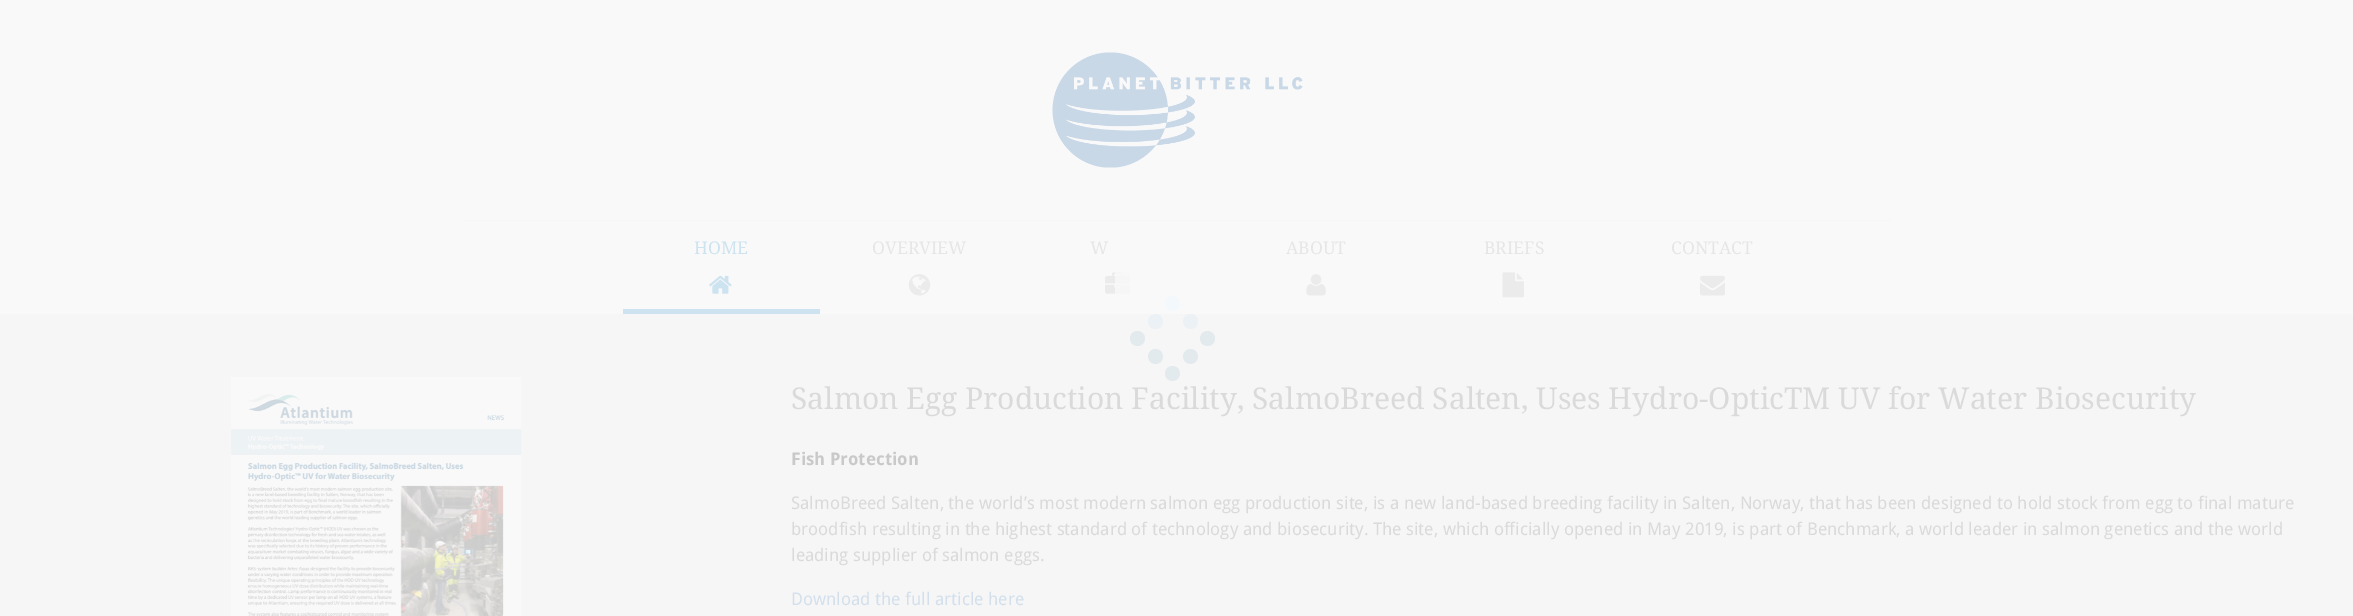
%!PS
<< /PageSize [2353 616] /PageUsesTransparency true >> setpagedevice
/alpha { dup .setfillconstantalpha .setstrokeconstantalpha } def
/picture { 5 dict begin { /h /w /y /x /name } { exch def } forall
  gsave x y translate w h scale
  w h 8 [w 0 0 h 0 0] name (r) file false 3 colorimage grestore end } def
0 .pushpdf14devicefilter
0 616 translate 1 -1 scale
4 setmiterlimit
0.965 setgray
0 0 2353 616 rectfill
0.976 setgray
0 0 2353 314 rectfill
(img1.rgb) 1052 52 251 116 picture
0.965 setgray
465 220 1425 1 rectfill
0.804 0.89 0.937 setrgbcolor
623 309 197 5 rectfill
/DroidSerif-Regular [17.5 0 0 -17.5 0 0] selectfont
694 254 moveto (HOME) show
(img2.rgb) 709 275 23 19 picture
0.902 setgray
872 254 moveto (OVERVIEW) show
(img3.rgb) 908 274 23 22 picture
1090 254 moveto (W) show
(img4.rgb) 1105 272 25 22 picture
1286 254 moveto (ABOUT) show
(img5.rgb) 1306 274 20 22 picture
1484 254 moveto (BRIEFS) show
(img6.rgb) 1502 272 22 26 picture
1671 254 moveto (CONTACT) show
(img7.rgb) 1700 275 25 21 picture
0.81 alpha
0.973 setgray
1115 272 15 22 rectfill
1 alpha
0.922 0.945 0.961 setrgbcolor
newpath 1155.5 321.5 7.5 0 360 arc closepath fill
0.89 0.918 0.933 setrgbcolor
newpath 1137.5 338.5 7.5 0 360 arc closepath fill
newpath 1155.5 356.5 7.5 0 360 arc closepath fill
newpath 1172.5 373.5 7.5 0 360 arc closepath fill
newpath 1190.5 356.5 7.5 0 360 arc closepath fill
newpath 1207.5 338.5 7.5 0 360 arc closepath fill
0.922 0.945 0.961 setrgbcolor
newpath 1190.5 321.5 7.5 0 360 arc closepath fill
0.949 0.973 0.988 setrgbcolor
newpath 1172.5 303.5 7.5 0 360 arc closepath fill
(img8.rgb) 231 377 291 239 picture
/DroidSerif-Regular [30 0 0 -30 0 0] selectfont
0.855 setgray
791 409 moveto (Salmon Egg Production Facility, SalmoBreed Salten, Uses Hydro-OpticTM UV for Water Biosecurity) show
/DroidSans-Bold [17.5 0 0 -17.5 0 0] selectfont
0.788 setgray
791 465 moveto (Fish Protection) show
/DroidSans-Regular [17.5 0 0 -17.5 0 0] selectfont
0.855 setgray
791 509 moveto (SalmoBreed Salten, the world’s most modern salmon egg production site, is a new land-based breeding facility in Salten, Norway, that has been designed to hold stock from egg to final mature) show
791 535 moveto (broodfish resulting in the highest standard of technology and biosecurity. The site, which officially opened in May 2019, is part of Benchmark, a world leader in salmon genetics and the world) show
791 561 moveto (leading supplier of salmon eggs.) show
0.827 0.878 0.925 setrgbcolor
791 605 moveto (Download the full article here) show
.poppdf14devicefilter showpage
